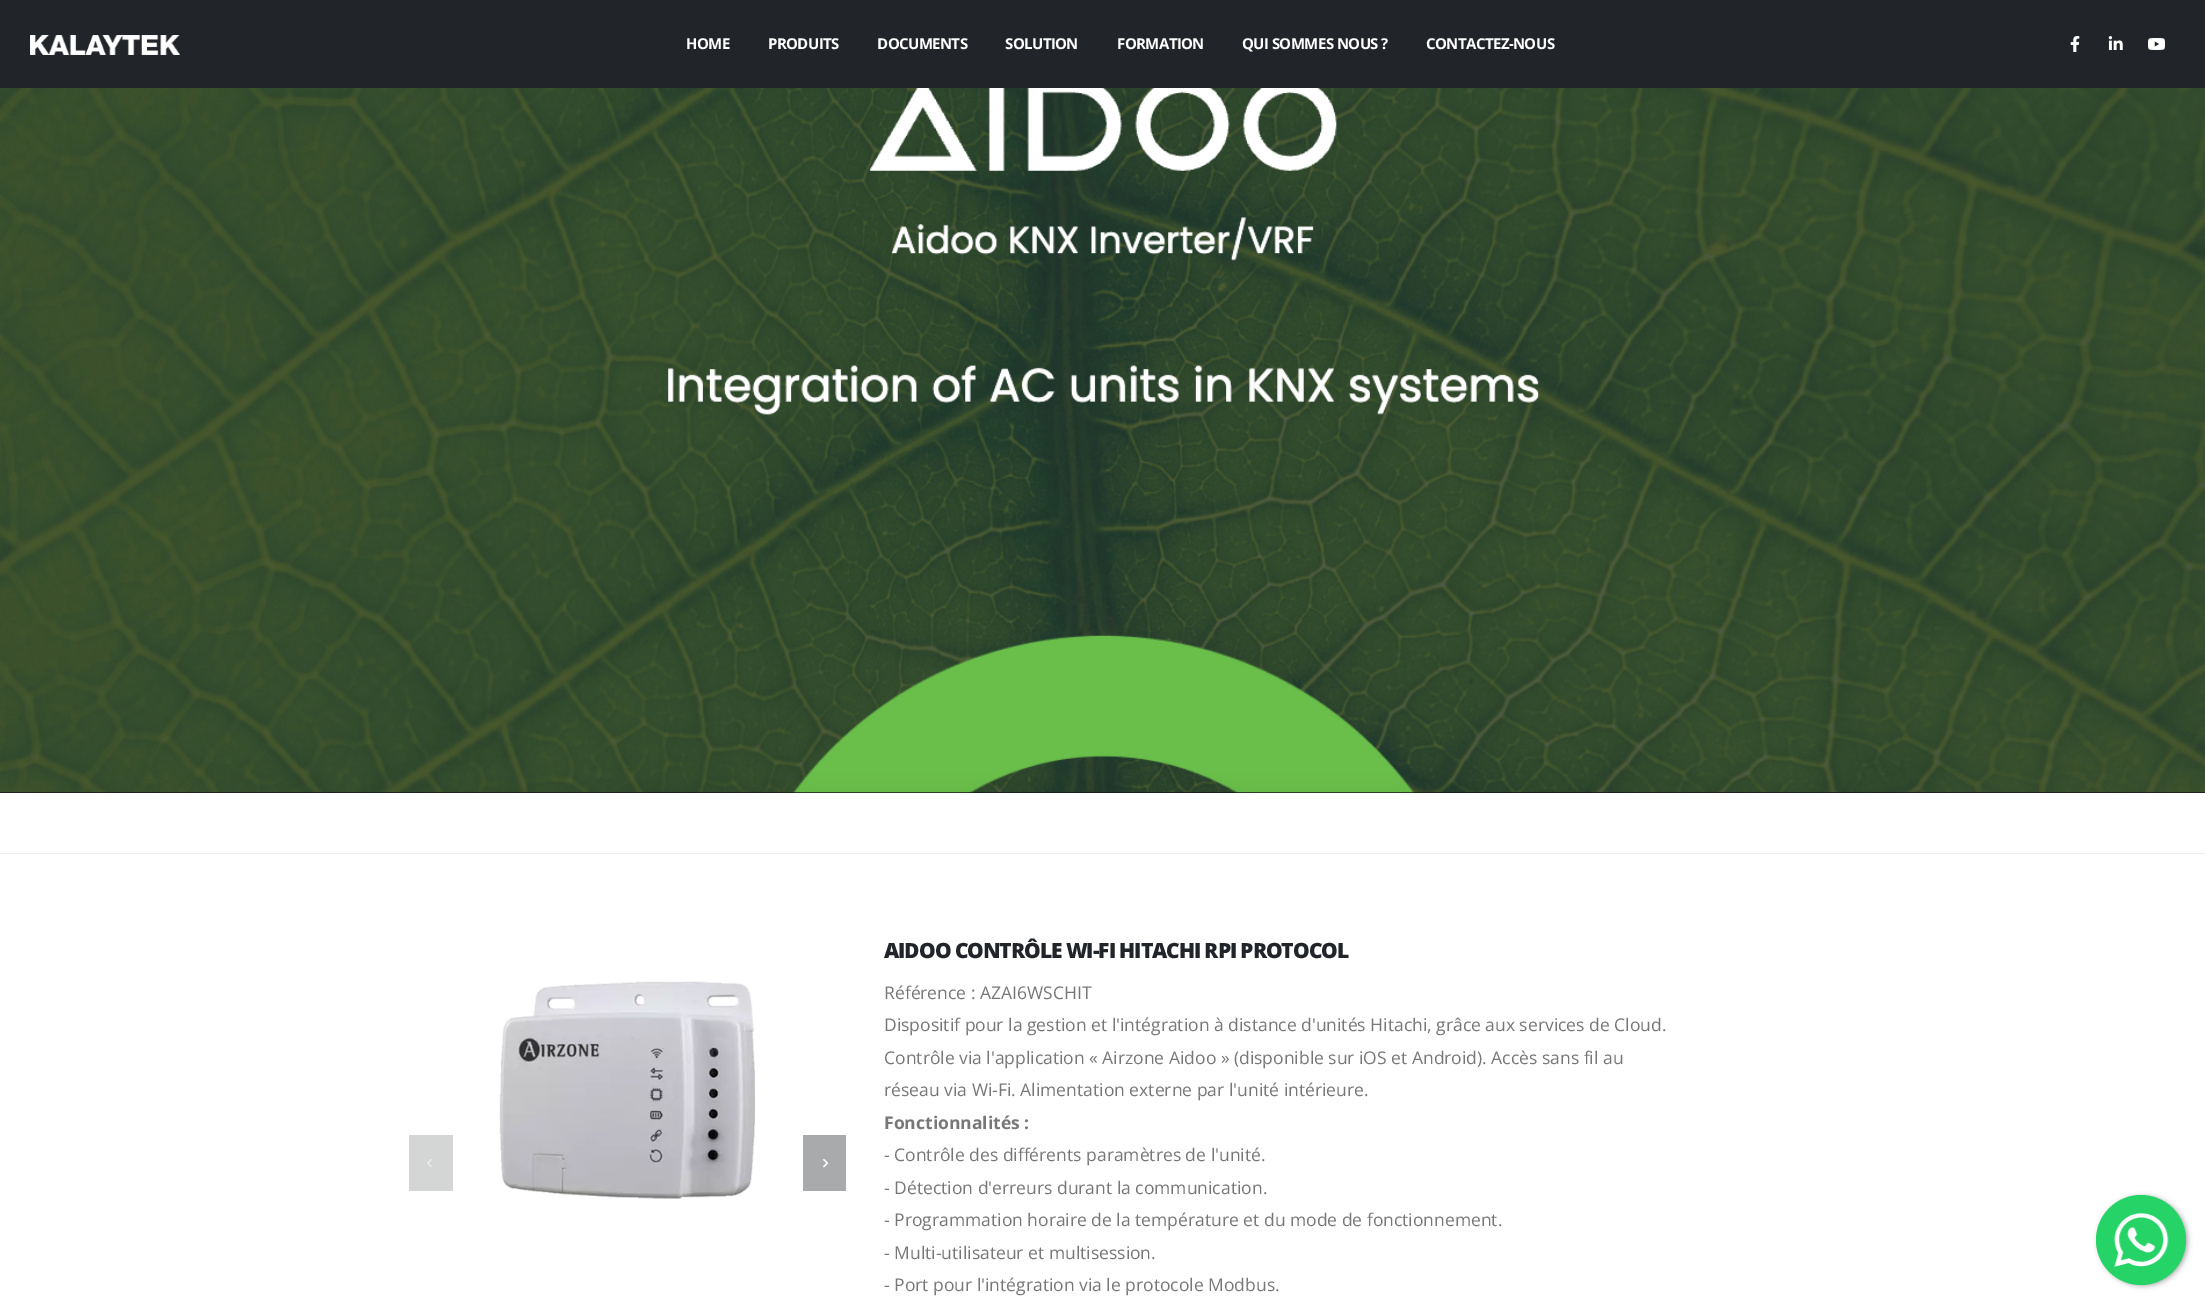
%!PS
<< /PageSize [2205 1303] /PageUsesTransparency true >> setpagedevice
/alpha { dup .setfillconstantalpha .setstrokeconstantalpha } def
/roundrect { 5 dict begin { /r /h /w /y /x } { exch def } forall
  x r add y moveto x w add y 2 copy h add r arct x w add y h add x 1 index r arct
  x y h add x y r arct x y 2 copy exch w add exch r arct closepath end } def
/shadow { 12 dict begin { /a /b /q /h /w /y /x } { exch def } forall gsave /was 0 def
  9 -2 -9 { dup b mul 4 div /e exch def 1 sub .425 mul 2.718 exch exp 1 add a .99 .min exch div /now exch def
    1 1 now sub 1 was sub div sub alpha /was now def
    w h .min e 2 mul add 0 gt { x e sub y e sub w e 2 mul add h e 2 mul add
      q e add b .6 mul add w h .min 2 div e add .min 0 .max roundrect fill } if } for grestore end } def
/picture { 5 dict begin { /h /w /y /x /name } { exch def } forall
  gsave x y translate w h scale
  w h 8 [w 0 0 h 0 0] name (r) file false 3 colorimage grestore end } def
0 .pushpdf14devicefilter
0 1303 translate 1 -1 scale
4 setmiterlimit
1 setgray
0 0 2205 1303 rectfill
0.129 0.145 0.161 setrgbcolor
0 0 2205 88 rectfill
(img1.rgb) 30 35 150 20 picture
/OpenSans-Bold [15 0 0 -15 0 0] selectfont
1 setgray
686 49 moveto -0.6 0 (HOME) ashow
768 49 moveto -0.6 0 (PRODUITS) ashow
877 49 moveto -0.6 0 (DOCUMENTS) ashow
1005 49 moveto -0.6 0 (SOLUTION) ashow
1117 49 moveto -0.6 0 (FORMATION) ashow
1242 49 moveto -0.6 0 (QUI SOMMES NOUS ?) ashow
1426 49 moveto -0.6 0 (CONTACTEZ-NOUS) ashow
(img2.rgb) 2070 36 10 16 picture
(img3.rgb) 2108 36 15 14 picture
(img4.rgb) 2147 38 19 12 picture
0.082 0.09 0.098 setrgbcolor
0 792 2205 1 rectfill
(img5.rgb) 0 88 2205 705 picture
0.941 setgray
0 853 2205 1 rectfill
(img6.rgb) 499 981 257 218 picture
0.831 0.835 0.835 setrgbcolor
409 1135 44 56 rectfill
(img7.rgb) 427 1159 5 8 picture
0.659 0.667 0.675 setrgbcolor
803 1135 43 56 rectfill
(img8.rgb) 823 1159 6 9 picture
/OpenSans-ExtraBold [21 0 0 -21 0 0] selectfont
0.129 0.145 0.161 setrgbcolor
884 958 moveto -1.05 0 (AIDOO CONTRÔLE WI-FI HITACHI RPI PROTOCOL) ashow
/OpenSans-Regular [17.5 0 0 -17.5 0 0] selectfont
0.467 setgray
884 999 moveto (Référence : AZAI6WSCHIT) show
884 1031 moveto (Dispositif pour la gestion et l'intégration à distance d'unités Hitachi, grâce aux services de Cloud.) show
884 1064 moveto (Contrôle via l'application « Airzone Aidoo » \(disponible sur iOS et Android\). Accès sans fil au) show
884 1096 moveto (réseau via Wi-Fi. Alimentation externe par l'unité intérieure.) show
/OpenSans-Bold [17.5 0 0 -17.5 0 0] selectfont
884 1129 moveto (Fonctionnalités :) show
/OpenSans-Regular [17.5 0 0 -17.5 0 0] selectfont
884 1161 moveto (- Contrôle des différents paramètres de l'unité.) show
884 1194 moveto (- Détection d'erreurs durant la communication.) show
884 1226 moveto (- Programmation horaire de la température et du mode de fonctionnement.) show
884 1259 moveto (- Multi-utilisateur et multisession.) show
884 1291 moveto (- Port pour l'intégration via le protocole Modbus.) show
0.235 setgray
2098 1196 90 90 45 2.5 0.4 shadow
0.145 0.827 0.4 setrgbcolor
newpath 2141 1240 45 0 360 arc closepath fill
(img9.rgb) 2114 1213 55 54 picture
.poppdf14devicefilter showpage
